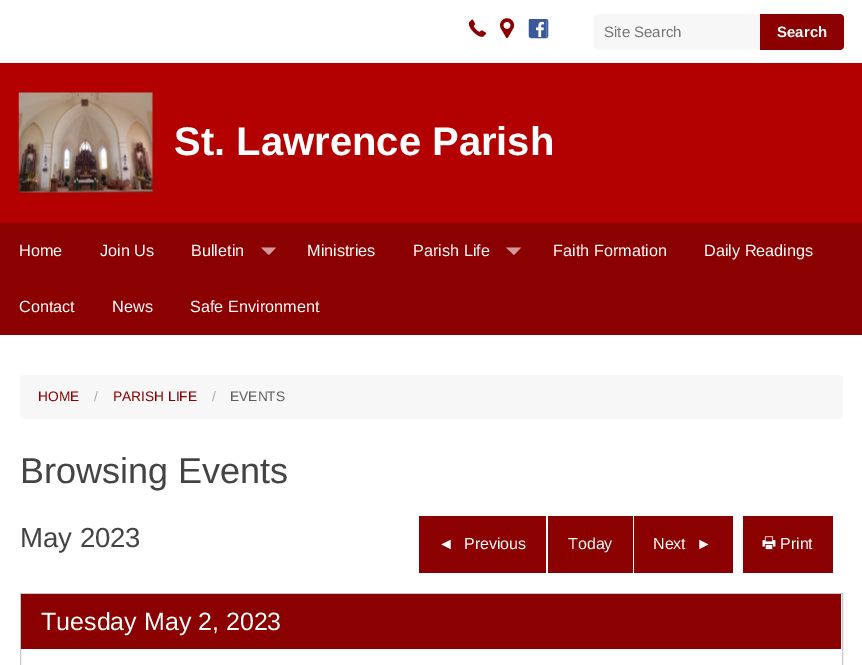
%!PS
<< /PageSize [862 665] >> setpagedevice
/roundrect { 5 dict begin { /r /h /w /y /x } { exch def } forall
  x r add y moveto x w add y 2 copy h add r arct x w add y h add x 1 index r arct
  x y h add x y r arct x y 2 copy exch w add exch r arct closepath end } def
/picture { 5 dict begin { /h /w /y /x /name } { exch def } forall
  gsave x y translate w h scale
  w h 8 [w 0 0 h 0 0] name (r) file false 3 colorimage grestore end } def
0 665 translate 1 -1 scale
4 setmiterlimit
1 setgray
0 0 862 665 rectfill
0.702 0 0 setrgbcolor
0 63 862 160 rectfill
(img1.rgb) 468 19 19 18 picture
(img2.rgb) 500 18 15 20 picture
0.231 0.349 0.596 setrgbcolor
529.5 19.5 18 18 1.5 roundrect stroke
(img3.rgb) 528 19 19 19 picture
0.969 setgray
newpath 598 14 moveto 760 14 lineto 760 50 lineto 598 50 lineto 596 50 594 48 594 46 curveto 594 18 lineto 594 16 596 14 598 14 curveto closepath fill
/LiberationSans-Regular [15 0 0 -15 0 0] selectfont
0.459 setgray
604 37 moveto (Site Search) show
0.545 0 0 setrgbcolor
newpath 760 14 moveto 840 14 lineto 842 14 844 16 844 18 curveto 844 46 lineto 844 48 842 50 840 50 curveto 760 50 lineto closepath fill
/LiberationSans-Bold [15 0 0 -15 0 0] selectfont
1 setgray
777 37 moveto (Search) show
(img4.rgb) 18 92 135 101 picture
/LiberationSans-Bold [40 0 0 -40 0 0] selectfont
174 155 moveto (St. Lawrence Parish) show
0.545 0 0 setrgbcolor
0 223 862 112 rectfill
/LiberationSans-Regular [16.25 0 0 -16.25 0 0] selectfont
1 setgray
19 256 moveto (Home) show
100 256 moveto (Join Us) show
191 256 moveto (Bulletin) show
0.82 0.6 0.6 setrgbcolor
newpath 261 247.5 moveto 276 247.5 lineto 269 255 lineto closepath fill
1 setgray
307 256 moveto (Ministries) show
413 256 moveto (Parish Life) show
0.82 0.6 0.6 setrgbcolor
newpath 506 247.5 moveto 521 247.5 lineto 514 255 lineto closepath fill
1 setgray
553 256 moveto (Faith Formation) show
704 256 moveto (Daily Readings) show
19 312 moveto (Contact) show
112 312 moveto (News) show
190 312 moveto (Safe Environment) show
0.969 setgray
20 375 823 44 4 roundrect fill
/LiberationSans-Regular [13.75 0 0 -13.75 0 0] selectfont
0.545 0 0 setrgbcolor
38 401 moveto (HOME) show
0.667 setgray
94 401 moveto (/) show
0.545 0 0 setrgbcolor
113 401 moveto (PARISH LIFE) show
0.667 setgray
212 401 moveto (/) show
0.369 setgray
230 401 moveto (EVENTS) show
/LiberationSans-Regular [36 0 0 -36 0 0] selectfont
0.267 setgray
20 483 moveto (Browsing Events) show
/LiberationSans-Regular [27.5 0 0 -27.5 0 0] selectfont
20 547 moveto (May 2023) show
0.545 0 0 setrgbcolor
419 516 127 57 rectfill
/LiberationSans-Regular [16 0 0 -16 0 0] selectfont
1 setgray
438 549 moveto (◄) show
464 549 moveto (Previous) show
0.545 0 0 setrgbcolor
548 516 85 57 rectfill
1 setgray
568 549 moveto (Today) show
0.545 0 0 setrgbcolor
634 516 99 57 rectfill
1 setgray
653 549 moveto (Next) show
696 549 moveto (►) show
0.545 0 0 setrgbcolor
743 516 90 57 rectfill
(img5.rgb) 762 536 14 14 picture
1 setgray
780 549 moveto (Print) show
0.78 setgray
20.5 593.5 822 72 rectstroke
0.545 0 0 setrgbcolor
21 594 820 55 rectfill
/LiberationSans-Regular [25 0 0 -25 0 0] selectfont
1 setgray
41 630 moveto (Tuesday May 2, 2023) show
showpage
